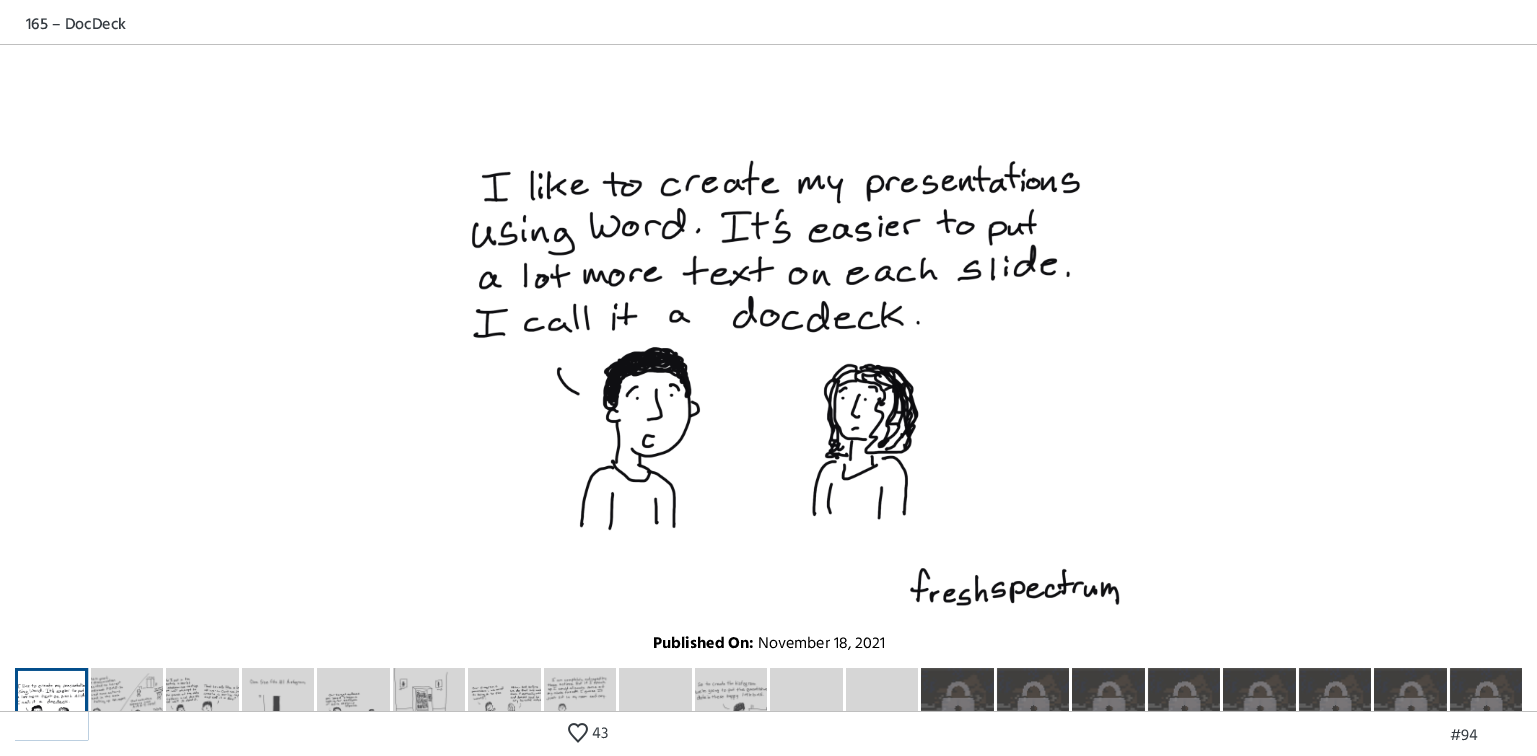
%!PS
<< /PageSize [1537 756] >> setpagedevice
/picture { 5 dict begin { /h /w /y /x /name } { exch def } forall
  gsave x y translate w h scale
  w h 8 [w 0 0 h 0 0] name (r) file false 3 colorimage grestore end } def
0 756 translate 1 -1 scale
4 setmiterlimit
1 setgray
0 0 1537 756 rectfill
0.749 setgray
0 44 1537 1 rectfill
/Hind-Medium [16 0 0 -16 0 0] selectfont
0.204 0.227 0.251 setrgbcolor
26 29 moveto (165 – DocDeck) show
0.839 setgray
695 668 72 43 rectfill
544 668 72 43 rectfill
468 668 73 17 rectfill
317 668 73 43 rectfill
242 668 72 43 rectfill
166 668 73 9 rectfill
91 668 72 43 rectfill
(img1.rgb) 472 160 648 446 picture
/Hind-Bold [16 0 0 -16 0 0] selectfont
0 setgray
653 648 moveto (Published On:) show
/Hind-Regular [16 0 0 -16 0 0] selectfont
758 648 moveto (November 18, 2021) show
0.012 0.306 0.545 setrgbcolor
3 setlinewidth
16.5 669.5 70 69 rectstroke
(img2.rgb) 18 670 67 41 picture
(img3.rgb) 91 673 72 38 picture
(img4.rgb) 166 677 73 34 picture
(img5.rgb) 249 678 65 33 picture
(img6.rgb) 325 692 65 19 picture
(img7.rgb) 393 668 72 43 picture
(img8.rgb) 468 685 73 26 picture
(img9.rgb) 546 676 70 35 picture
0.839 setgray
619 668 73 43 rectfill
(img10.rgb) 695 680 72 31 picture
770 668 73 43 rectfill
846 668 72 43 rectfill
(img11.rgb) 921 668 73 43 picture
(img12.rgb) 996 668 73 43 picture
(img11.rgb) 1072 668 73 43 picture
(img13.rgb) 1147 668 73 43 picture
(img11.rgb) 1223 668 73 43 picture
(img13.rgb) 1298 668 73 43 picture
(img11.rgb) 1374 668 73 43 picture
(img13.rgb) 1449 668 73 43 picture
1 setgray
15 712 73 28 rectfill
0.749 setgray
0 711 1537 1 rectfill
(img14.rgb) 568 723 20 20 picture
0.204 0.227 0.251 setrgbcolor
592 738 moveto (43) show
1450 740 moveto (#94) show
showpage
